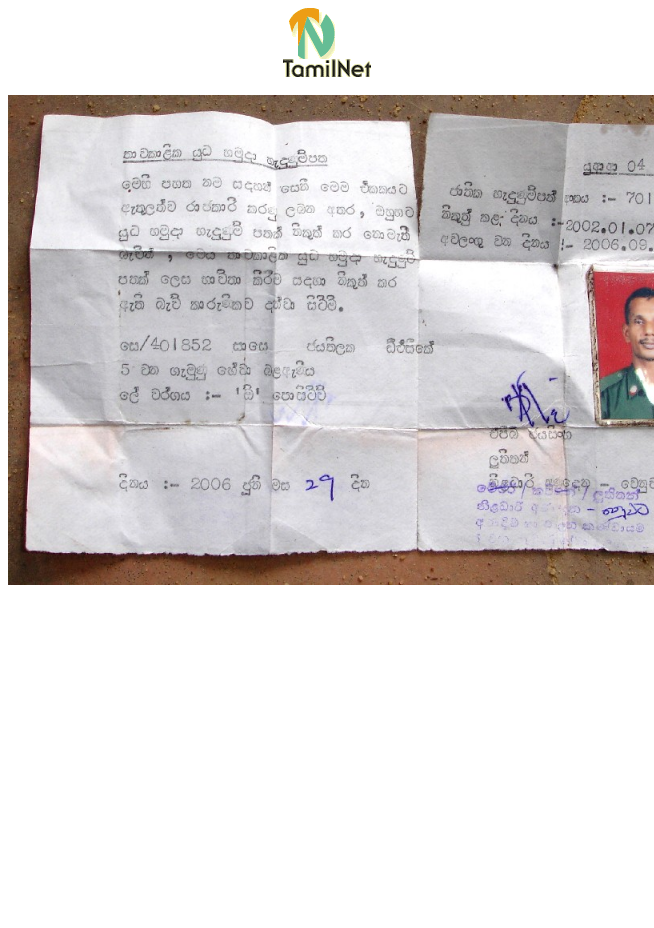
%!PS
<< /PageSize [654 928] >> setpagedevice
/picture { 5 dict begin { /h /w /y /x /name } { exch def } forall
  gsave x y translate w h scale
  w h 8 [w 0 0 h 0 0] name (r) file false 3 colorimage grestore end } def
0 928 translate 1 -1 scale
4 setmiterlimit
1 setgray
0 0 654 928 rectfill
(img1.rgb) 283 8 88 69 picture
(img2.rgb) 8 95 646 490 picture
showpage
